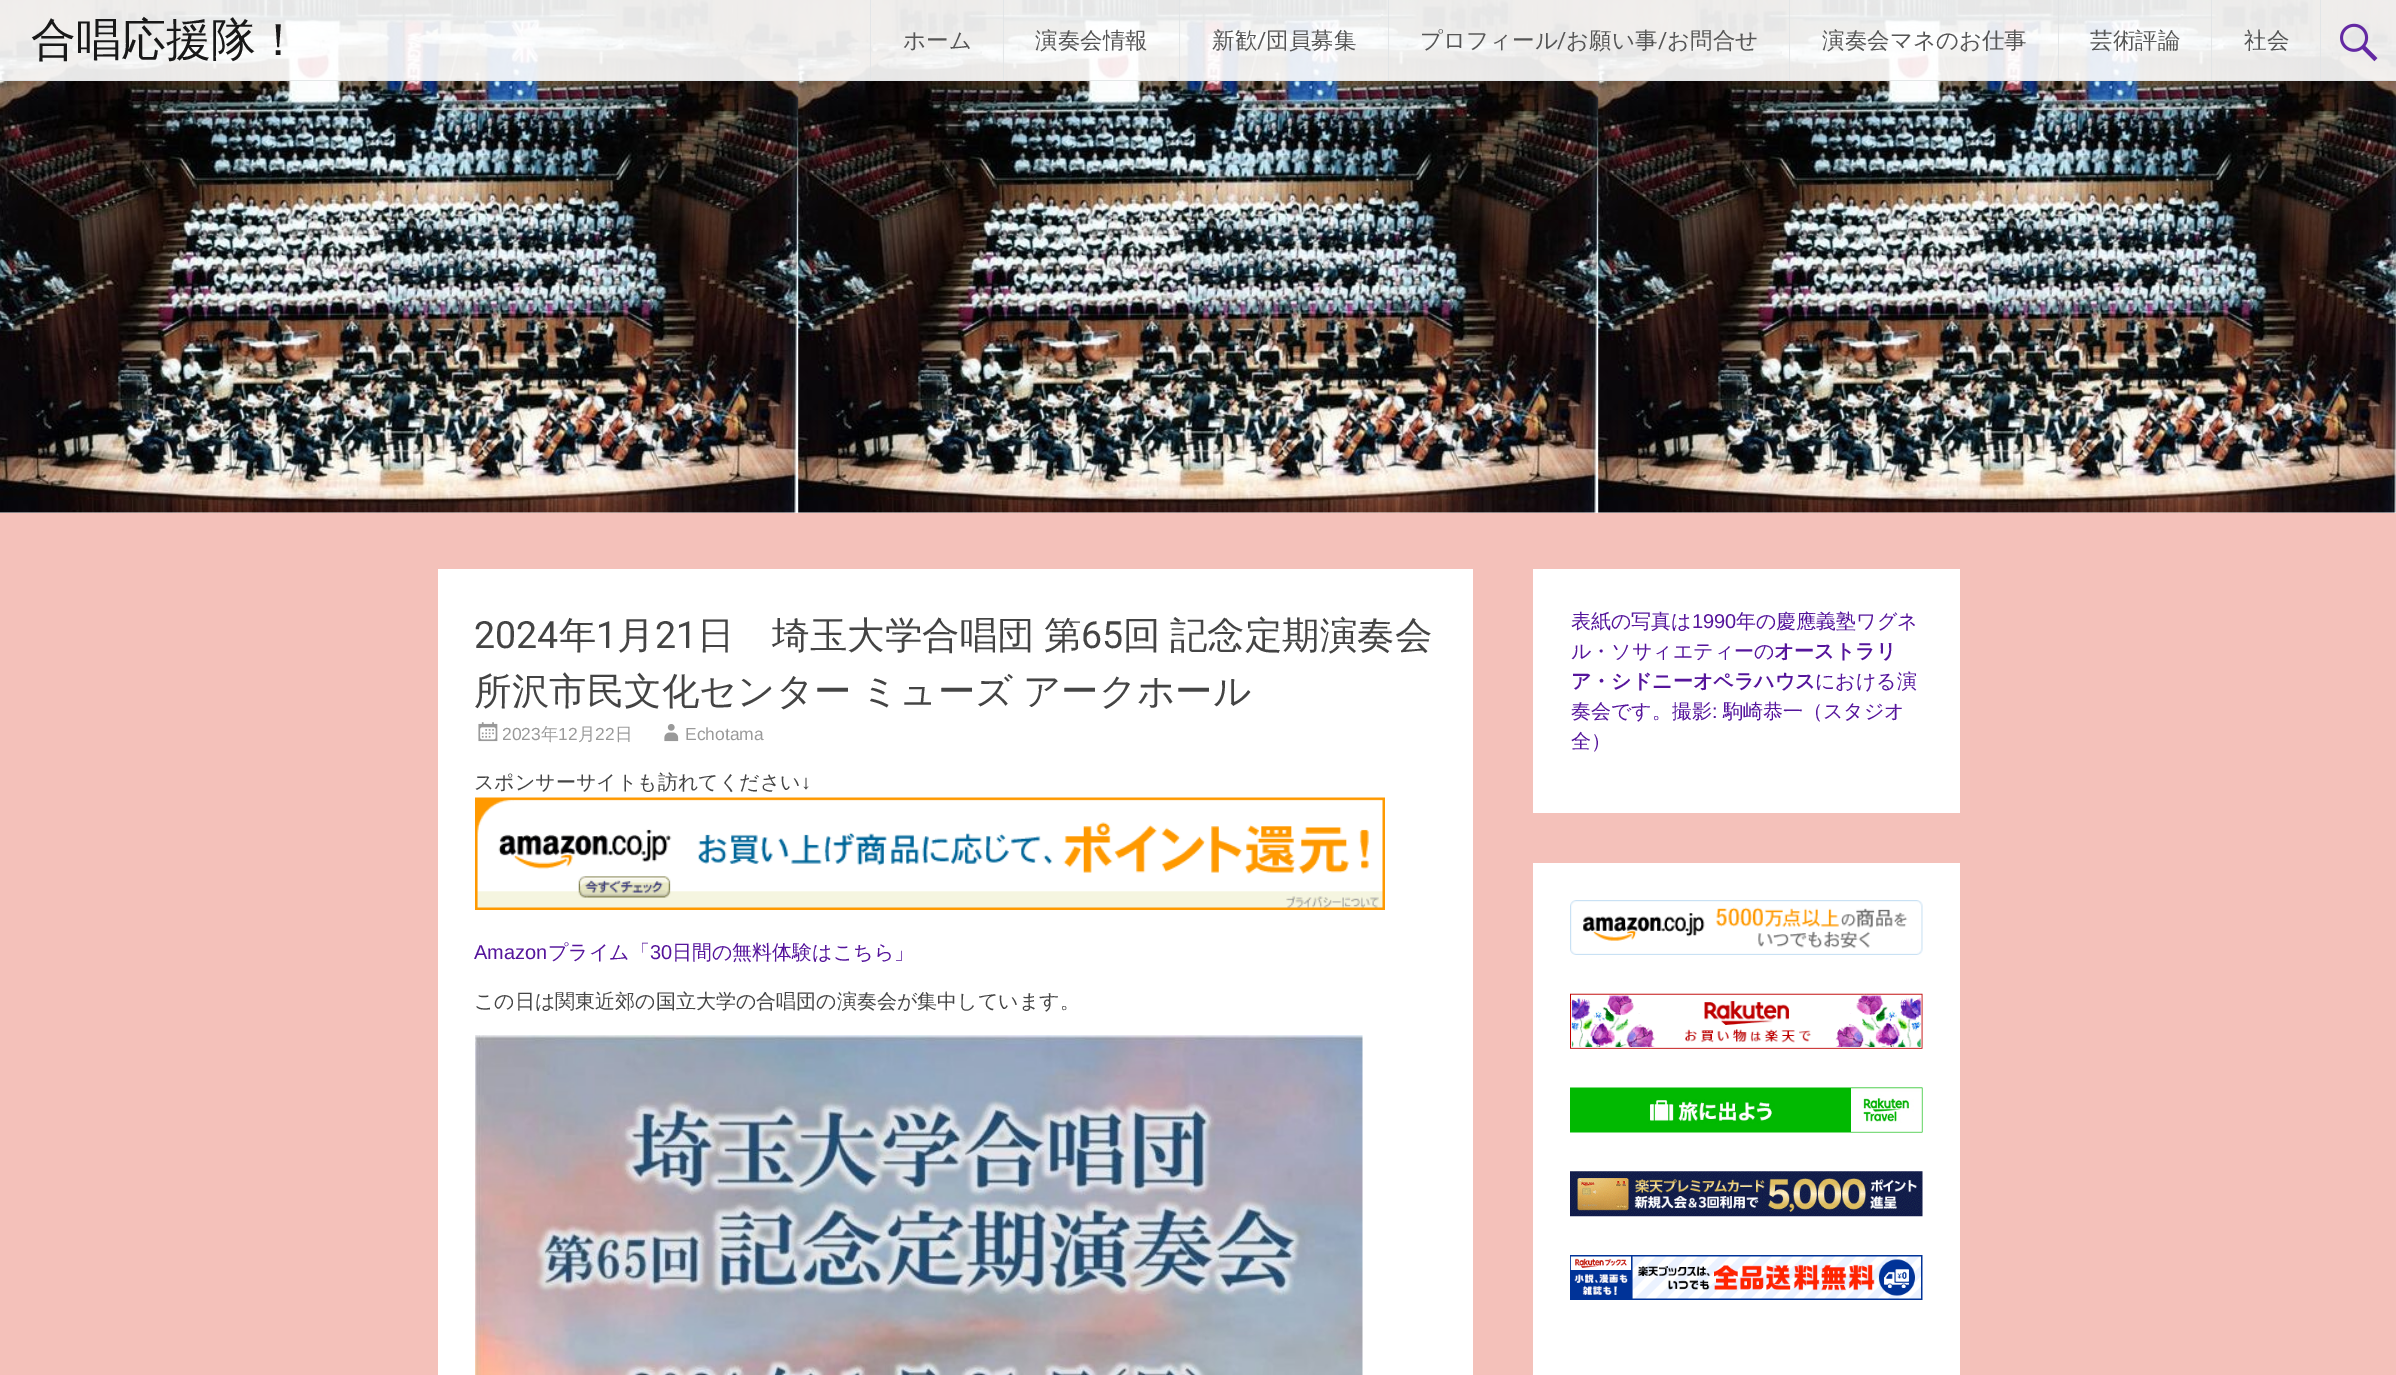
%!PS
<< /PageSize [2396 1375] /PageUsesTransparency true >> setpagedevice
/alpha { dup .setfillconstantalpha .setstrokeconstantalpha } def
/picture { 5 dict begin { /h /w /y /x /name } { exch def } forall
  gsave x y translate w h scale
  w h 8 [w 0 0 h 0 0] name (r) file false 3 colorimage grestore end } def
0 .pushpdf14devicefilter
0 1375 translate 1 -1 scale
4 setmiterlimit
1 setgray
0 0 2396 1375 rectfill
(img1.rgb) 0 0 2396 513 picture
0.9 alpha
0 0 2396 81 rectfill
0.882 0.894 0.902 setrgbcolor
0 80 2396 1 rectfill
/WenQuanYiZenHei-Medium [45 0 0 -45 0 0] selectfont
1 alpha
0.094 setgray
31 55 moveto (合唱応援隊！) show
0.9 alpha
0.882 0.894 0.902 setrgbcolor
870 0 1 80 rectfill
/WenQuanYiZenHei-Medium [22.5 0 0 -22.5 0 0] selectfont
1 alpha
0.333 setgray
903 48 moveto (ホーム) show
0.9 alpha
0.882 0.894 0.902 setrgbcolor
1003 0 1 80 rectfill
1 alpha
0.333 setgray
1035 48 moveto (演奏会情報) show
0.9 alpha
0.882 0.894 0.902 setrgbcolor
1179 0 1 80 rectfill
1 alpha
0.333 setgray
1212 48 moveto (新歓) show
/Roboto-Regular [22.5 0 0 -22.5 0 0] selectfont
1257 48 moveto (/) show
/WenQuanYiZenHei-Medium [22.5 0 0 -22.5 0 0] selectfont
1266 48 moveto (団員募集) show
0.9 alpha
0.882 0.894 0.902 setrgbcolor
1388 0 1 80 rectfill
1 alpha
0.333 setgray
1420 48 moveto (プロフィール) show
/Roboto-Regular [22.5 0 0 -22.5 0 0] selectfont
1557 48 moveto (/) show
/WenQuanYiZenHei-Medium [22.5 0 0 -22.5 0 0] selectfont
1566 48 moveto (お願い事) show
/Roboto-Regular [22.5 0 0 -22.5 0 0] selectfont
1658 48 moveto (/) show
/WenQuanYiZenHei-Medium [22.5 0 0 -22.5 0 0] selectfont
1667 48 moveto (お問合せ) show
0.9 alpha
0.882 0.894 0.902 setrgbcolor
1789 0 1 80 rectfill
1 alpha
0.333 setgray
1822 48 moveto (演奏会マネのお仕事) show
0.9 alpha
0.882 0.894 0.902 setrgbcolor
2058 0 1 80 rectfill
1 alpha
0.333 setgray
2090 48 moveto (芸術評論) show
0.9 alpha
0.882 0.894 0.902 setrgbcolor
2211 0 1 80 rectfill
1 alpha
0.333 setgray
2244 48 moveto (社会) show
0.9 alpha
0.882 0.894 0.902 setrgbcolor
2320 0 1 80 rectfill
1 alpha
(img2.rgb) 2340 23 38 39 picture
0.957 0.757 0.729 setrgbcolor
0 513 2396 862 rectfill
1 setgray
438 569 1035 806 rectfill
/Roboto-Regular [37.5 0 0 -37.5 0 0] selectfont
0.267 setgray
474 648 moveto (2024) show
/WenQuanYiZenHei-Medium [37.5 0 0 -37.5 0 0] selectfont
559 648 moveto (年) show
/Roboto-Regular [37.5 0 0 -37.5 0 0] selectfont
596 648 moveto (1) show
/WenQuanYiZenHei-Medium [37.5 0 0 -37.5 0 0] selectfont
617 648 moveto (月) show
/Roboto-Regular [37.5 0 0 -37.5 0 0] selectfont
655 648 moveto (21) show
/WenQuanYiZenHei-Medium [37.5 0 0 -37.5 0 0] selectfont
697 648 moveto -2 0 32 (日　埼玉大学合唱団 第) widthshow
/Roboto-Regular [37.5 0 0 -37.5 0 0] selectfont
1081 648 moveto (65) show
/WenQuanYiZenHei-Medium [37.5 0 0 -37.5 0 0] selectfont
1123 648 moveto -2 0 32 (回 記念定期演奏会) widthshow
474 704 moveto -2 0 32 (所沢市民文化センター ミューズ アークホール) widthshow
(img3.rgb) 478 722 20 20 picture
/LiberationSans-Regular [17.5 0 0 -17.5 0 0] selectfont
0.6 setgray
502 740 moveto (2023) show
/WenQuanYiZenHei-Medium [17.5 0 0 -17.5 0 0] selectfont
541 740 moveto (年) show
/LiberationSans-Regular [17.5 0 0 -17.5 0 0] selectfont
558 740 moveto (12) show
/WenQuanYiZenHei-Medium [17.5 0 0 -17.5 0 0] selectfont
578 740 moveto (月) show
/LiberationSans-Regular [17.5 0 0 -17.5 0 0] selectfont
595 740 moveto (22) show
/WenQuanYiZenHei-Medium [17.5 0 0 -17.5 0 0] selectfont
615 740 moveto (日) show
(img4.rgb) 664 724 15 18 picture
/LiberationSans-Regular [17.5 0 0 -17.5 0 0] selectfont
685 740 moveto (Echotama) show
/WenQuanYiZenHei-Medium [20 0 0 -20 0 0] selectfont
0.267 setgray
474 789 moveto (スポンサーサイトも訪れてください) show
/LiberationSans-Regular [20 0 0 -20 0 0] selectfont
801 789 moveto (↓) show
(img5.rgb) 475 797 910 113 picture
0.333 0.078 0.608 setrgbcolor
474 959 moveto (Amazon) show
/WenQuanYiZenHei-Medium [20 0 0 -20 0 0] selectfont
548 959 moveto (プライム「) show
/LiberationSans-Regular [20 0 0 -20 0 0] selectfont
650 959 moveto (30) show
/WenQuanYiZenHei-Medium [20 0 0 -20 0 0] selectfont
672 959 moveto (日間の無料体験はこちら」) show
0.267 setgray
474 1008 moveto (この日は関東近郊の国立大学の合唱団の演奏会が集中しています。) show
(img6.rgb) 475 1035 888 340 picture
1 setgray
1533 569 427 244 rectfill
0.333 0.078 0.608 setrgbcolor
1571 628 moveto (表紙の写真は) show
/LiberationSans-Regular [20 0 0 -20 0 0] selectfont
1692 628 moveto (1990) show
/WenQuanYiZenHei-Medium [20 0 0 -20 0 0] selectfont
1736 628 moveto (年の慶應義塾ワグネ) show
1571 658 moveto (ル・ソサィエティーの) show
/WenQuanYiZenHei-Bold [20 0 0 -20 0 0] selectfont
1774 658 moveto (オーストラリ) show
1571 688 moveto (ア・シドニーオペラハウス) show
/WenQuanYiZenHei-Medium [20 0 0 -20 0 0] selectfont
1815 688 moveto (における演) show
1571 718 moveto (奏会です。撮影) show
/LiberationSans-Regular [20 0 0 -20 0 0] selectfont
1712 718 moveto (:) show
/WenQuanYiZenHei-Medium [20 0 0 -20 0 0] selectfont
1723 718 moveto (駒崎恭一（スタジオ) show
1571 748 moveto (全）) show
1 setgray
1533 863 427 512 rectfill
(img7.rgb) 1570 900 353 55 picture
(img8.rgb) 1570 993 353 56 picture
(img9.rgb) 1570 1087 353 46 picture
(img10.rgb) 1570 1171 353 46 picture
(img11.rgb) 1570 1255 353 45 picture
.poppdf14devicefilter showpage
